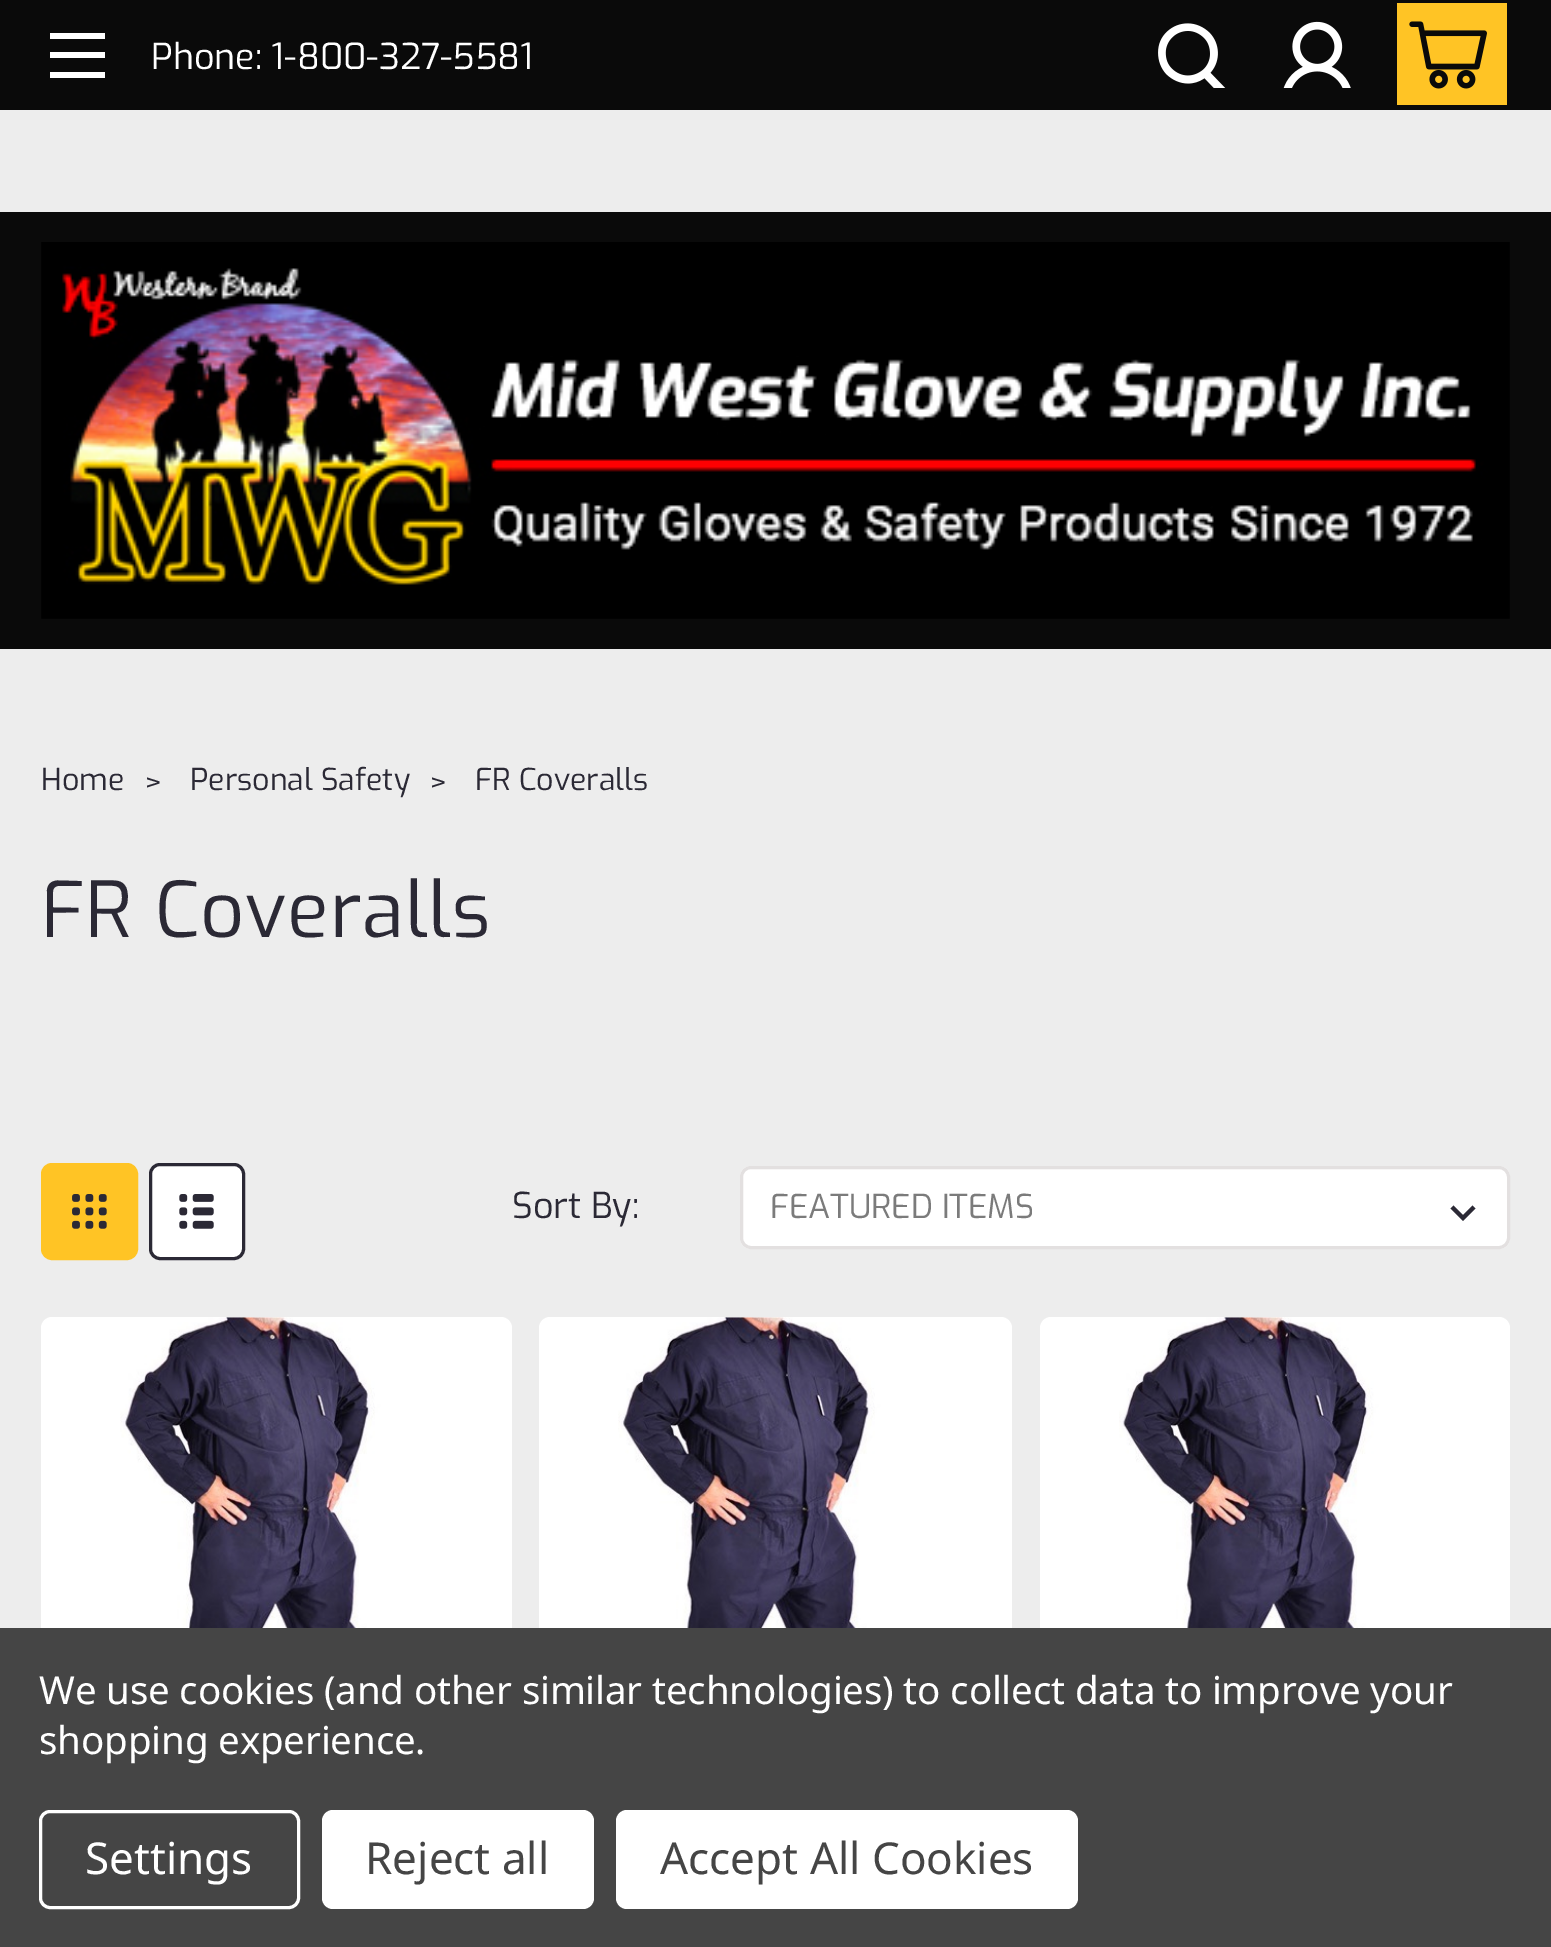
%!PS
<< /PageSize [1551 1947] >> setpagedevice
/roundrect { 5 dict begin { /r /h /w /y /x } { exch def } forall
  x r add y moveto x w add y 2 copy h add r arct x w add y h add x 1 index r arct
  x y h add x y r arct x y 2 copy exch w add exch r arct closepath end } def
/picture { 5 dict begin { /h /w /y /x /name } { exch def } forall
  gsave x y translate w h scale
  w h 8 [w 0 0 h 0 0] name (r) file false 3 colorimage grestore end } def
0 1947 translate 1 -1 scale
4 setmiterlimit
0.929 setgray
0 0 1551 1947 rectfill
0.039 setgray
0 0 1551 110 rectfill
1 setgray
50 52 55 6 rectfill
50 33 55 6 rectfill
50 72 55 6 rectfill
/Exo-Regular [35.75 0 0 -35.75 0 0] selectfont
151 69 moveto (Phone: 1-800-327-5581) show
(img1.rgb) 1158 23 68 65 picture
(img2.rgb) 1283 21 68 67 picture
1 0.769 0.145 setrgbcolor
1397 3 110 102 rectfill
(img3.rgb) 1409 21 78 68 picture
0.039 setgray
0 212 1551 437 rectfill
(img4.rgb) 41 242 1469 377 picture
/Exo-Regular [30.25 0 0 -30.25 0 0] selectfont
0.169 0.161 0.208 setrgbcolor
41 790 moveto (Home) show
144 793 moveto (>) show
190 790 moveto (Personal Safety) show
429 793 moveto (>) show
475 790 moveto (FR Coveralls) show
/Exo-Regular [77 0 0 -77 0 0] selectfont
41 937 moveto 0.75 0 (FR Coveralls) ashow
1 0.769 0.145 setrgbcolor
42.5 1164.5 94 94 9.5 roundrect gsave fill grestore
3 setlinewidth
stroke
(img5.rgb) 72 1194 35 35 picture
1 setgray
150.5 1164.5 93 94 9.5 roundrect gsave fill grestore
0.169 0.161 0.208 setrgbcolor
stroke
(img6.rgb) 179 1194 35 35 picture
/Exo-Regular [35.75 0 0 -35.75 0 0] selectfont
512 1218 moveto (Sort By:) show
1 setgray
740 1166 770 83 11 roundrect fill
0.169 0.161 0.208 setrgbcolor
newpath 1472.5 1205.5 moveto 1463 1215 lineto 1453.5 1205.5 lineto 1450.5 1208.5 lineto 1463 1221 lineto 1475.5 1208.5 lineto closepath fill
0.89 0.878 0.878 setrgbcolor
741.5 1167.5 767 80 9.5 roundrect stroke
/Exo-Regular [33 0 0 -33 0 0] selectfont
0.482 setgray
770 1218 moveto (FEATURED ITEMS) show
1 setgray
41 1317 471 471 11 roundrect fill
(img7.rgb) 120 1317 296 311 picture
539 1317 473 471 11 roundrect fill
(img8.rgb) 618 1317 298 311 picture
1040 1317 470 471 11 roundrect fill
(img9.rgb) 1119 1317 295 311 picture
0.271 setgray
0 1628 1551 319 rectfill
/NotoSans-Regular [38.5 0 0 -38.5 0 0] selectfont
1 setgray
39 1704 moveto -0.15 0 (We use cookies \(and other similar technologies\) to collect data to improve your) ashow
39 1754 moveto -0.15 0 (shopping experience.) ashow
40.5 1811.5 258 96 9.5 roundrect stroke
/NotoSans-Regular [44 0 0 -44 0 0] selectfont
85 1874 moveto (Settings) show
322 1810 272 99 11 roundrect fill
0.271 setgray
365 1874 moveto (Reject all) show
1 setgray
616 1810 462 99 11 roundrect fill
0.271 setgray
660 1874 moveto (Accept All Cookies) show
showpage
